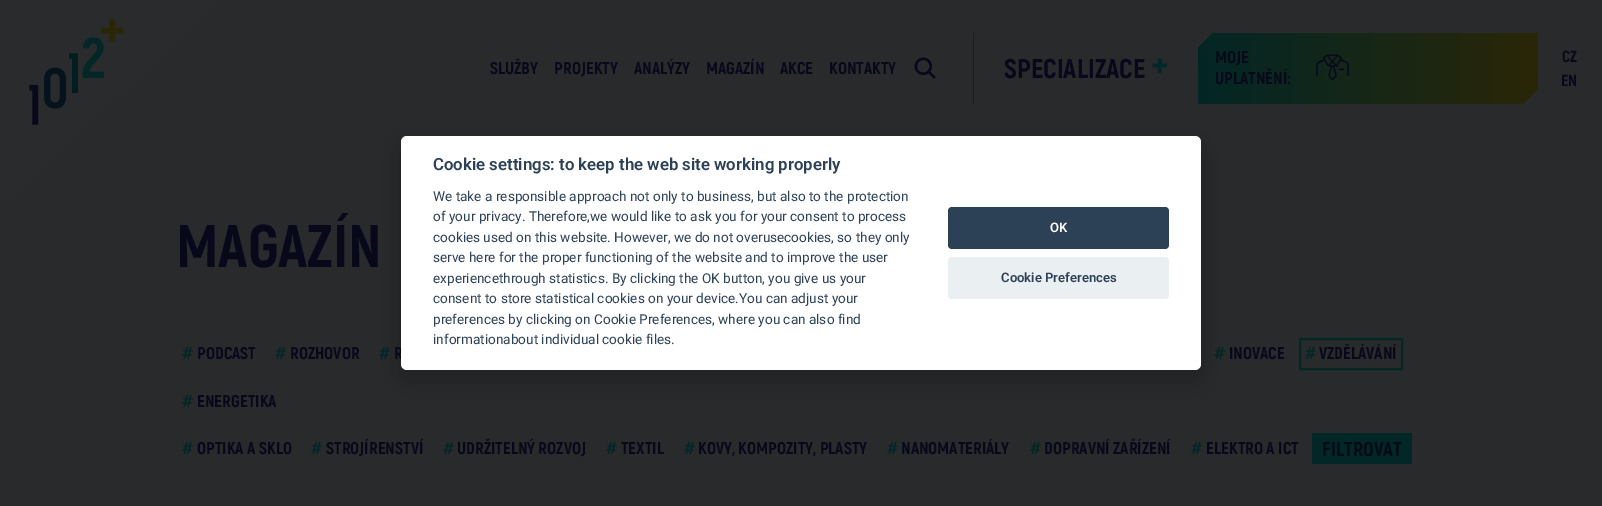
%!PS
<< /PageSize [1602 506] /PageUsesTransparency true >> setpagedevice
/alpha { dup .setfillconstantalpha .setstrokeconstantalpha } def
/roundrect { 5 dict begin { /r /h /w /y /x } { exch def } forall
  x r add y moveto x w add y 2 copy h add r arct x w add y h add x 1 index r arct
  x y h add x y r arct x y 2 copy exch w add exch r arct closepath end } def
/shadow { 12 dict begin { /a /b /q /h /w /y /x } { exch def } forall gsave /was 0 def
  9 -2 -9 { dup b mul 4 div /e exch def 1 sub .425 mul 2.718 exch exp 1 add a .99 .min exch div /now exch def
    1 1 now sub 1 was sub div sub alpha /was now def
    w h .min e 2 mul add 0 gt { x e sub y e sub w e 2 mul add h e 2 mul add
      q e add b .6 mul add w h .min 2 div e add .min 0 .max roundrect fill } if } for grestore end } def
/picture { 5 dict begin { /h /w /y /x /name } { exch def } forall
  gsave x y translate w h scale
  w h 8 [w 0 0 h 0 0] name (r) file false 3 colorimage grestore end } def
0 .pushpdf14devicefilter
0 506 translate 1 -1 scale
4 setmiterlimit
0.161 0.165 0.173 setrgbcolor
0 0 1602 506 rectfill
(img1.rgb) 0 0 224 208 picture
/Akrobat-ExtraBold [17 0 0 -17 0 0] selectfont
0.027 0.035 0.106 setrgbcolor
490 74 moveto (SLUŽBY) show
554 74 moveto (PROJEKTY) show
634 74 moveto (ANALÝZY) show
706 74 moveto (MAGAZÍN) show
780 74 moveto (AKCE) show
829 74 moveto (KONTAKTY) show
(img2.rgb) 914 57 22 22 picture
0.012 0.149 0.149 setrgbcolor
973 33 1 71 rectfill
/Akrobat-ExtraBold [27 0 0 -27 0 0] selectfont
0.027 0.035 0.106 setrgbcolor
1004 78 moveto (SPECIALIZACE) show
/Akrobat-ExtraBold [37 0 0 -37 0 0] selectfont
0.012 0.149 0.149 setrgbcolor
1151 77 moveto (+) show
gsave newpath 1213 33 moveto 1198 48 lineto 1198 104 lineto 1523 104 lineto 1538 89 lineto 1538 33 lineto closepath clip newpath
<< /ShadingType 2 /ColorSpace /DeviceRGB /Coords [1198 69 1538 68] /Extend [true true] /Function << /FunctionType 2 /Domain [0 1] /C0 [0.012 0.149 0.149] /C1 [0.165 0.149 0.027] /N 1 >> >> shfill grestore
/Akrobat-ExtraBold [17 0 0 -17 0 0] selectfont
0.027 0.035 0.106 setrgbcolor
1215 63 moveto (MOJE) show
1215 84 moveto (UPLATNĚNÍ:) show
(img3.rgb) 1316 54 33 27 picture
/Akrobat-ExtraBold [16 0 0 -16 0 0] selectfont
1562 62 moveto (CZ) show
1561 86 moveto (EN) show
/Akrobat-ExtraBold [60 0 0 -60 0 0] selectfont
176 267 moveto (MAGAZÍN) show
/Akrobat-ExtraBold [17 0 0 -17 0 0] selectfont
0.012 0.149 0.149 setrgbcolor
182 359 moveto (#) show
0.027 0.035 0.106 setrgbcolor
197 359 moveto (PODCAST) show
0.012 0.149 0.149 setrgbcolor
275 359 moveto (#) show
0.027 0.035 0.106 setrgbcolor
290 359 moveto (ROZHOVOR) show
0.012 0.149 0.149 setrgbcolor
379 359 moveto (#) show
0.027 0.035 0.106 setrgbcolor
394 359 moveto (R) show
0.012 0.149 0.149 setrgbcolor
1214 359 moveto (#) show
0.027 0.035 0.106 setrgbcolor
1229 359 moveto (INOVACE) show
0.012 0.149 0.149 setrgbcolor
2 setlinewidth
1300 339 102 30 rectstroke
1305 359 moveto (#) show
0.027 0.035 0.106 setrgbcolor
1319 359 moveto (VZDĚLÁVÁNÍ) show
0.012 0.149 0.149 setrgbcolor
182 407 moveto (#) show
0.027 0.035 0.106 setrgbcolor
197 407 moveto (ENERGETIKA) show
0.012 0.149 0.149 setrgbcolor
182 454 moveto (#) show
0.027 0.035 0.106 setrgbcolor
197 454 moveto (OPTIKA A SKLO) show
0.012 0.149 0.149 setrgbcolor
311 454 moveto (#) show
0.027 0.035 0.106 setrgbcolor
326 454 moveto (STROJÍRENSTVÍ) show
0.012 0.149 0.149 setrgbcolor
443 454 moveto (#) show
0.027 0.035 0.106 setrgbcolor
457 454 moveto (UDRŽITELNÝ ROZVOJ) show
0.012 0.149 0.149 setrgbcolor
606 454 moveto (#) show
0.027 0.035 0.106 setrgbcolor
621 454 moveto (TEXTIL) show
0.012 0.149 0.149 setrgbcolor
684 454 moveto (#) show
0.027 0.035 0.106 setrgbcolor
698 454 moveto (KOVY, KOMPOZITY, PLASTY) show
0.012 0.149 0.149 setrgbcolor
887 454 moveto (#) show
0.027 0.035 0.106 setrgbcolor
901 454 moveto (NANOMATERIÁLY) show
0.012 0.149 0.149 setrgbcolor
1030 454 moveto (#) show
0.027 0.035 0.106 setrgbcolor
1044 454 moveto (DOPRAVNÍ ZAŘÍZENÍ) show
0.012 0.149 0.149 setrgbcolor
1191 454 moveto (#) show
0.027 0.035 0.106 setrgbcolor
1206 454 moveto (ELEKTRO A ICT) show
0.012 0.149 0.149 setrgbcolor
1312 433 100 31 rectfill
/Akrobat-ExtraBold [20 0 0 -20 0 0] selectfont
0.012 0.043 0.082 setrgbcolor
1322 456 moveto (FILTROVAT) show
0.008 0.008 0.012 setrgbcolor
401 146 800 234 6 15 0.28 shadow
1 setgray
401 136 800 234 6 roundrect fill
/Roboto-SemiBold [16.8 0 0 -16.8 0 0] selectfont
0.176 0.255 0.337 setrgbcolor
433 170 moveto (Cookie settings: to keep the web site working properly) show
/Roboto-Regular [13.6 0 0 -13.6 0 0] selectfont
433 201 moveto (We take a responsible approach not only to business, but also to the protection) show
433 221 moveto (of your privacy. Therefore,we would like to ask you for your consent to process) show
433 242 moveto (cookies used on this website. However, we do not overusecookies, so they only) show
433 262 moveto (serve here for the proper functioning of the website and to improve the user) show
433 283 moveto (experiencethrough statistics. By clicking the OK button, you give us your) show
433 303 moveto (consent to store statistical cookies on your device.You can adjust your) show
433 324 moveto (preferences by clicking on Cookie Preferences, where you can also find) show
433 344 moveto (informationabout individual cookie files.) show
948 207 221 42 4 roundrect fill
/Roboto-SemiBold [13.1 0 0 -13.1 0 0] selectfont
1 setgray
1050 232 moveto (OK) show
0.918 0.937 0.949 setrgbcolor
948 257 221 42 4 roundrect fill
0.176 0.255 0.337 setrgbcolor
1001 282 moveto (Cookie Preferences) show
.poppdf14devicefilter showpage
